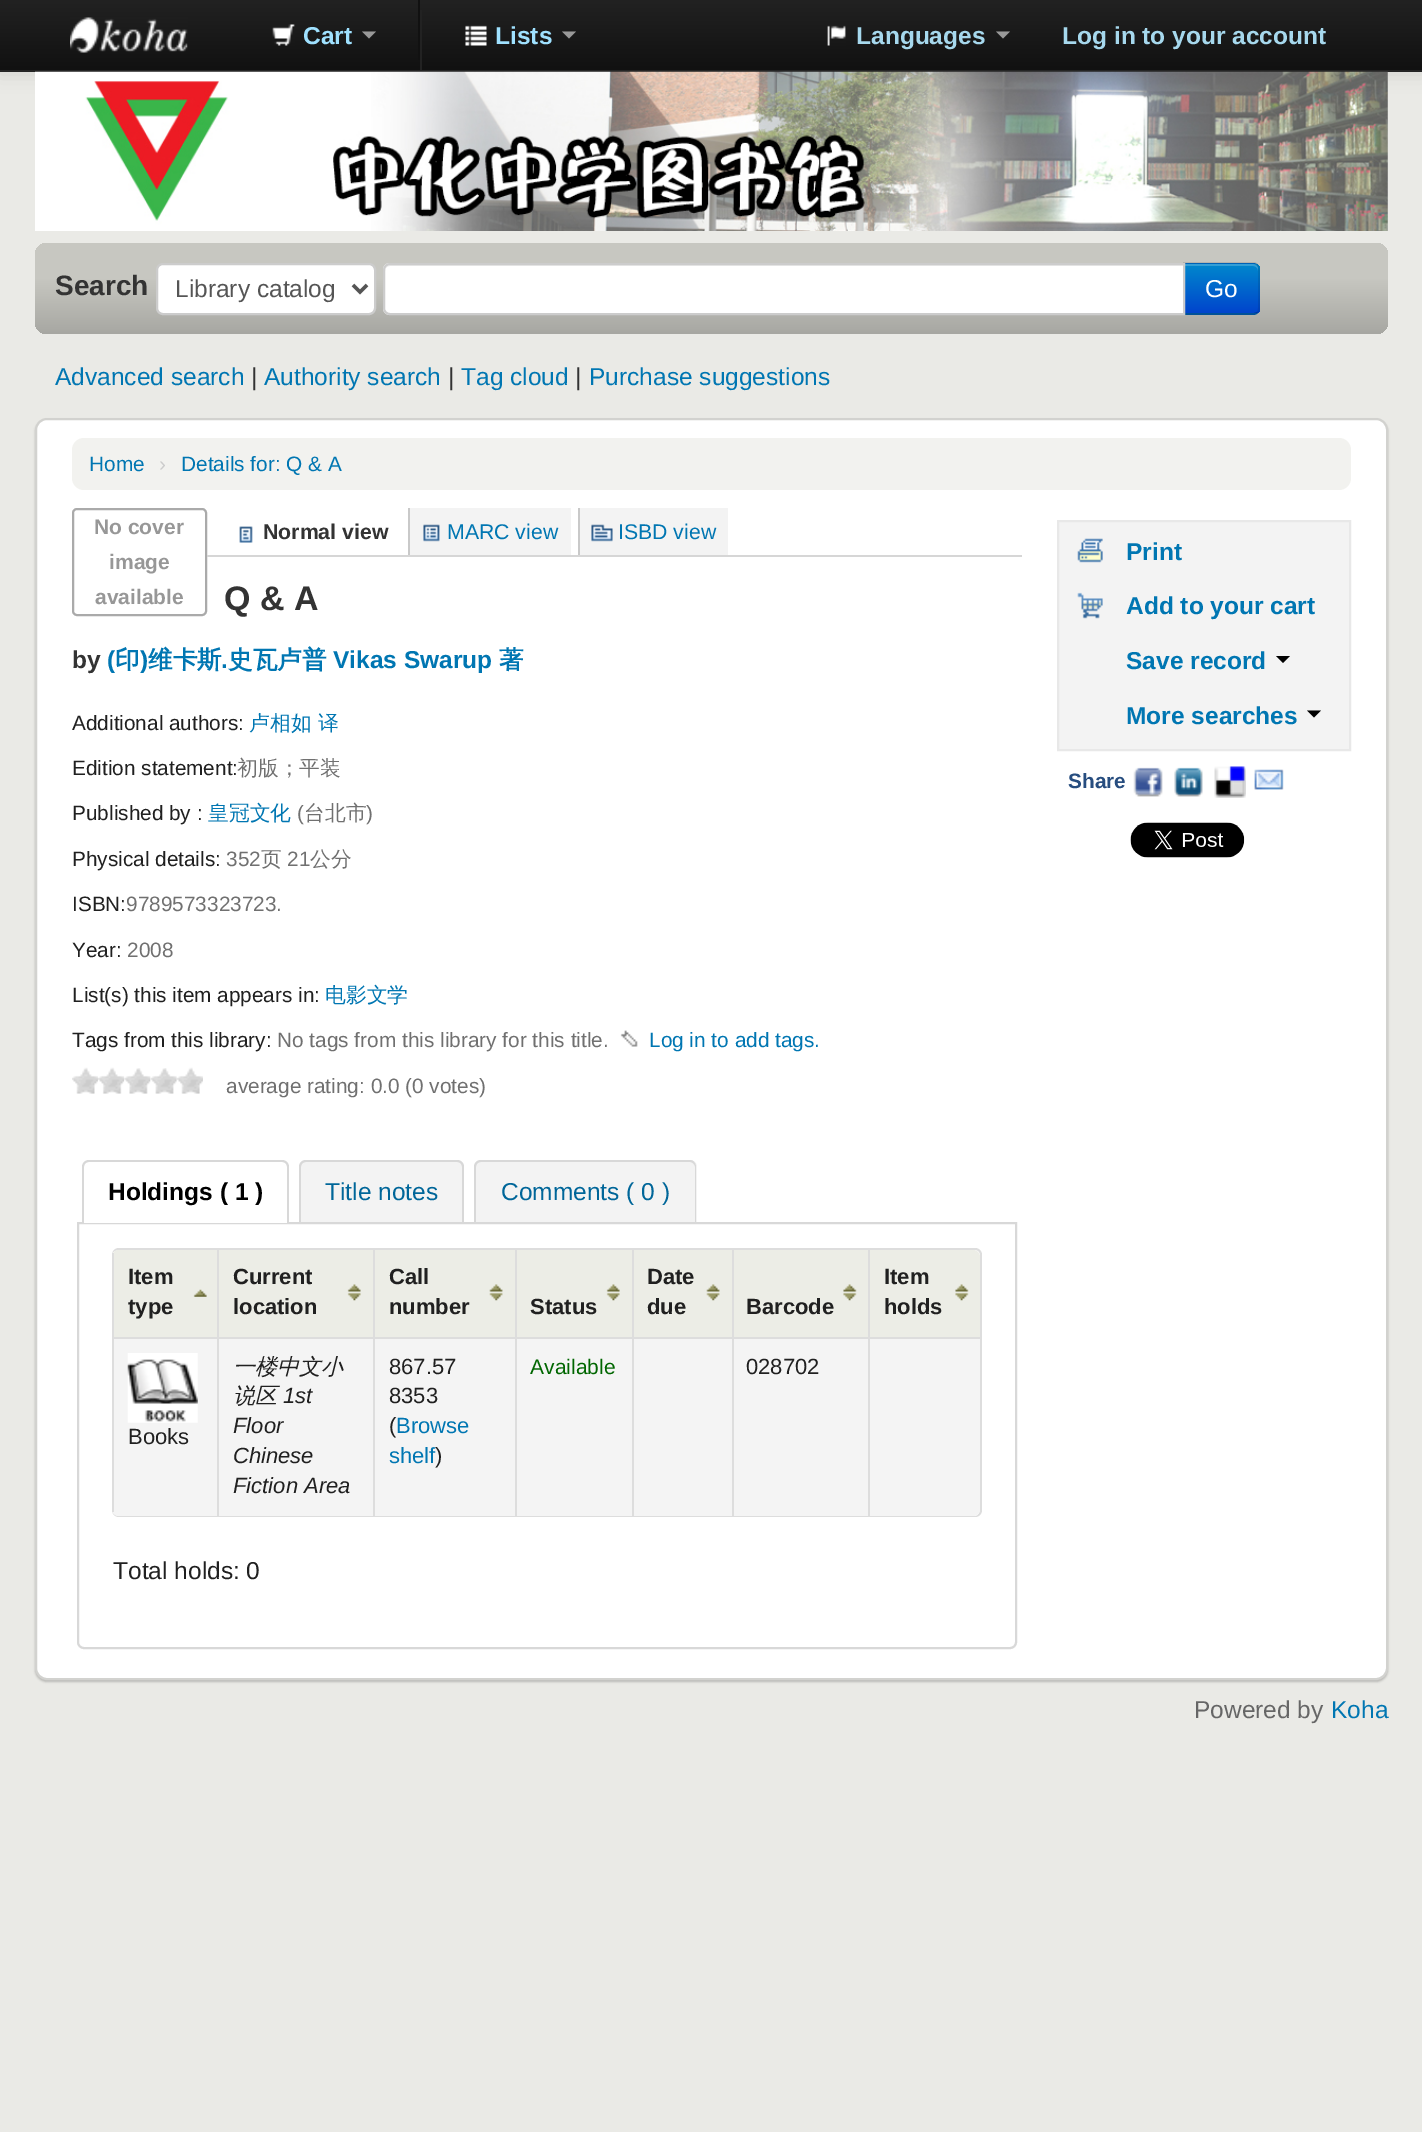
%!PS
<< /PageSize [1422 2132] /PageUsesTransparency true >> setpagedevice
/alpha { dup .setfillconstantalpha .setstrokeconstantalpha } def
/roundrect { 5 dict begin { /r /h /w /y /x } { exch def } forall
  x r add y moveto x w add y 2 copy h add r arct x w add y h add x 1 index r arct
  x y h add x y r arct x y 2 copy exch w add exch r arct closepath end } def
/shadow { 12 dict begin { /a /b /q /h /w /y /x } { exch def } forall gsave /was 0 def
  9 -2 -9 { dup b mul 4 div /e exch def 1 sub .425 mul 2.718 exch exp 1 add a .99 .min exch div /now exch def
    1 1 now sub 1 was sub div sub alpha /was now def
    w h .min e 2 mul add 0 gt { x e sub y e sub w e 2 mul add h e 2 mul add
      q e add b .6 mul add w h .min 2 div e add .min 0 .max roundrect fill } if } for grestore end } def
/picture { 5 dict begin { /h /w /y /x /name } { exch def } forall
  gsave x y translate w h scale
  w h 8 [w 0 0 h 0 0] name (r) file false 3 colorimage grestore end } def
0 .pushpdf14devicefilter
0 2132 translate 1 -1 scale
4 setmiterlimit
0.918 0.918 0.902 setrgbcolor
0 0 1422 2132 rectfill
0 setgray
0 2 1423 72 0 9 0.1 shadow
gsave newpath 0 0 moveto 1422 0 lineto 1422 70 lineto 0 70 lineto closepath clip newpath
<< /ShadingType 2 /ColorSpace /DeviceRGB /Coords [711 0 711 70] /Extend [true true] /Function << /FunctionType 2 /Domain [0 1] /C0 [0.133 0.133 0.133] /C1 [0.067 0.067 0.067] /N 1 >> >> shfill grestore
0.145 setgray
0 70 1422 2 rectfill
(img1.rgb) 70 17 118 36 picture
(img2.rgb) 272 24 23 22 picture
/LiberationSans-Bold [24.5 0 0 -24.5 0 0] selectfont
0.624 0.882 1 setrgbcolor
303 44 moveto (Cart) show
0.6 setgray
newpath 362 31.5 moveto 376 31.5 lineto 369 38.5 lineto closepath fill
0.133 setgray
420 10 2 60 rectfill
0.067 setgray
418 0 2 60 rectfill
(img3.rgb) 465 25 22 21 picture
0.624 0.882 1 setrgbcolor
495 44 moveto (Lists) show
0.6 setgray
newpath 562 31.5 moveto 576 31.5 lineto 569 38.5 lineto closepath fill
(img4.rgb) 827 25 19 21 picture
0.651 0.847 0.929 setrgbcolor
856 44 moveto (Languages) show
0.6 setgray
newpath 996 31.5 moveto 1010 31.5 lineto 1003 38.5 lineto closepath fill
0.651 0.847 0.929 setrgbcolor
1062 44 moveto (Log in to your account) show
(img5.rgb) 35 71 1353 160 picture
gsave 35 243 1353 91 12 roundrect clip newpath
<< /ShadingType 2 /ColorSpace /DeviceRGB /Coords [711 243 711 334] /Extend [true true] /Function << /FunctionType 3 /Domain [0 1] /Functions [<< /FunctionType 2 /Domain [0 1] /C0 [0.78 0.78 0.757] /C1 [0.78 0.78 0.757] /N 1 >> << /FunctionType 2 /Domain [0 1] /C0 [0.78 0.78 0.757] /C1 [0.655 0.655 0.635] /N 1 >>] /Bounds [0.38] /Encode [0 1 0 1] >> >> shfill grestore
/LiberationSans-Bold [28 0 0 -28 0 0] selectfont
0.2 setgray
55 295 moveto (Search) show
1 setgray
157 264 218 50 6 roundrect gsave fill grestore
0.8 setgray
2 setlinewidth
stroke
0.333 setgray
3.5 setlinewidth
newpath 353 285 moveto 360 292 lineto 367 285 lineto stroke
/LiberationSans-Regular [24.5 0 0 -24.5 0 0] selectfont
175 297 moveto (Library catalog) show
0 0.427 0.8 setrgbcolor
newpath 1183 263 moveto 1253 263 lineto 1257 263 1260 266 1260 270 curveto 1260 308 lineto 1260 312 1257 315 1253 315 curveto 1183 315 lineto closepath fill
gsave
newpath 1183 263 moveto 1253 263 lineto 1257 263 1260 266 1260 270 curveto 1260 308 lineto 1260 312 1257 315 1253 315 curveto 1183 315 lineto closepath clip newpath
gsave newpath 1185 264 moveto 1260 264 lineto 1260 313 lineto 1185 313 lineto closepath clip newpath
<< /ShadingType 2 /ColorSpace /DeviceRGB /Coords [1222 264 1222 313] /Extend [true true] /Function << /FunctionType 2 /Domain [0 1] /C0 [0 0.533 0.8] /C1 [0 0.267 0.8] /N 1 >> >> shfill grestore
grestore
0.2 alpha
1 setgray
newpath 1185 266 moveto 1253 266 lineto 1256 266 1258 268 1258 271 curveto 1258 269 lineto 1258 266 1256 264 1253 264 curveto 1185 264 lineto closepath fill
0.1 alpha
0 setgray
newpath 1185 264 moveto 1183 262 lineto 1255 262 lineto 1258 264 lineto 1257 266 lineto 1256 265 1254 264 1253 264 curveto closepath fill
newpath 1260 308 moveto 1260 270 lineto 1260 268 1259 266 1258 264 curveto 1257 266 lineto 1258 267 1258 268 1258 270 curveto 1258 308 lineto 1258 310 1258 311 1257 312 curveto 1258 313 lineto 1259 312 1260 310 1260 308 curveto closepath fill
0.25 alpha
newpath 1253 315 moveto 1255 315 1257 314 1258 313 curveto 1257 312 lineto 1254 313 lineto 1185 313 lineto 1183 315 lineto closepath fill
0.1 alpha
newpath 1183 315 moveto 1185 313 lineto 1185 264 lineto 1183 262 lineto closepath fill
1 alpha
1 setgray
newpath 390 263 moveto 1185 263 lineto 1185 315 lineto 390 315 lineto 386 315 383 312 383 308 curveto 383 270 lineto 383 266 386 263 390 263 curveto closepath fill
0.925 setgray
newpath 390 266 moveto 1183 266 lineto 1183 264 lineto 390 264 lineto 386 264 385 268 385 271 curveto 385 268 387 266 390 266 curveto closepath fill
0.8 setgray
2 setlinewidth
newpath 390 264 moveto 1184 264 lineto 1184 314 lineto 390 314 lineto 386.5 314 384 311.5 384 308 curveto 384 270 lineto 384 266.5 386.5 264 390 264 curveto closepath stroke
1 setgray
1205 297 moveto (Go) show
0 0.463 0.698 setrgbcolor
55 385 moveto (Advanced search) show
0.2 setgray
251 385 moveto (|) show
0 0.463 0.698 setrgbcolor
264 385 moveto (Authority search) show
0.2 setgray
448 385 moveto (|) show
0 0.463 0.698 setrgbcolor
461 385 moveto (Tag cloud) show
0.2 setgray
575 385 moveto (|) show
0 0.463 0.698 setrgbcolor
589 385 moveto (Purchase suggestions) show
0 setgray
35 420 1353 1262 12 1 0.2 shadow
1 setgray
36 419 1351 1260 11 roundrect gsave fill grestore
0.824 0.824 0.812 setrgbcolor
stroke
0.949 0.949 0.937 setrgbcolor
72 438 1279 52 12 roundrect fill
/LiberationSans-Regular [20.8 0 0 -20.8 0 0] selectfont
0 0.463 0.698 setrgbcolor
89 471 moveto (Home) show
0.8 setgray
159 471 moveto (›) show
0 0.463 0.698 setrgbcolor
181 471 moveto (Details for: Q & A) show
0.667 setgray
73 509 133 106 4 roundrect stroke
/LiberationSans-Bold [21 0 0 -21 0 0] selectfont
0.592 setgray
94 534 moveto (No cover) show
109 569 moveto (image) show
95 604 moveto (available) show
0.839 setgray
207 555 815 2 rectfill
(img6.rgb) 239 526 14 17 picture
/LiberationSans-Bold [21.25 0 0 -21.25 0 0] selectfont
0.2 setgray
263 539 moveto (Normal view) show
0.953 setgray
410 508 161 47 rectfill
0.788 setgray
408 508 2 47 rectfill
(img7.rgb) 423 524 17 18 picture
/LiberationSans-Regular [21.25 0 0 -21.25 0 0] selectfont
0 0.463 0.698 setrgbcolor
447 539 moveto (MARC view) show
0.953 setgray
580 508 148 47 rectfill
0.788 setgray
578 508 2 47 rectfill
(img8.rgb) 591 524 22 18 picture
0 0.463 0.698 setrgbcolor
618 539 moveto (ISBD view) show
/LiberationSans-Bold [34 0 0 -34 0 0] selectfont
0.2 setgray
224 610 moveto (Q & A) show
/LiberationSans-Bold [24.5 0 0 -24.5 0 0] selectfont
72 668 moveto (by) show
0 0.463 0.698 setrgbcolor
107 668 moveto (\() show
/WenQuanYiZenHei-Bold [24.5 0 0 -24.5 0 0] selectfont
115 668 moveto (印) show
/LiberationSans-Bold [24.5 0 0 -24.5 0 0] selectfont
140 668 moveto (\)) show
/WenQuanYiZenHei-Bold [24.5 0 0 -24.5 0 0] selectfont
148 668 moveto (维卡斯) show
/LiberationSans-Bold [24.5 0 0 -24.5 0 0] selectfont
221 668 moveto (.) show
/WenQuanYiZenHei-Bold [24.5 0 0 -24.5 0 0] selectfont
228 668 moveto (史瓦卢普) show
/LiberationSans-Bold [24.5 0 0 -24.5 0 0] selectfont
333 668 moveto (Vikas Swarup) show
/WenQuanYiZenHei-Bold [24.5 0 0 -24.5 0 0] selectfont
499 668 moveto (著) show
/LiberationSans-Regular [20.75 0 0 -20.75 0 0] selectfont
0.125 setgray
72 730 moveto (Additional authors:) show
/WenQuanYiZenHei-Medium [20.8 0 0 -20.8 0 0] selectfont
0 0.463 0.698 setrgbcolor
249 730 moveto (卢相如 译) show
/LiberationSans-Regular [20.75 0 0 -20.75 0 0] selectfont
0.125 setgray
72 775 moveto (Edition statement:) show
/WenQuanYiZenHei-Medium [20.8 0 0 -20.8 0 0] selectfont
0.439 setgray
237 775 moveto (初版；平装) show
/LiberationSans-Regular [20.75 0 0 -20.75 0 0] selectfont
0.125 setgray
72 820 moveto (Published by :) show
/WenQuanYiZenHei-Medium [20.8 0 0 -20.8 0 0] selectfont
0 0.463 0.698 setrgbcolor
208 820 moveto (皇冠文化) show
/LiberationSans-Regular [20.8 0 0 -20.8 0 0] selectfont
0.439 setgray
297 820 moveto (\() show
/WenQuanYiZenHei-Medium [20.8 0 0 -20.8 0 0] selectfont
304 820 moveto (台北市) show
/LiberationSans-Regular [20.8 0 0 -20.8 0 0] selectfont
366 820 moveto (\)) show
/LiberationSans-Regular [20.75 0 0 -20.75 0 0] selectfont
0.125 setgray
72 866 moveto (Physical details:) show
/LiberationSans-Regular [20.8 0 0 -20.8 0 0] selectfont
0.439 setgray
226 866 moveto (352) show
/WenQuanYiZenHei-Medium [20.8 0 0 -20.8 0 0] selectfont
261 866 moveto (页) show
/LiberationSans-Regular [20.8 0 0 -20.8 0 0] selectfont
287 866 moveto (21) show
/WenQuanYiZenHei-Medium [20.8 0 0 -20.8 0 0] selectfont
310 866 moveto (公分) show
/LiberationSans-Regular [20.75 0 0 -20.75 0 0] selectfont
0.125 setgray
72 911 moveto (ISBN:) show
/LiberationSans-Regular [20.8 0 0 -20.8 0 0] selectfont
0.439 setgray
126 911 moveto (9789573323723.) show
/LiberationSans-Regular [20.75 0 0 -20.75 0 0] selectfont
0.125 setgray
72 957 moveto (Year:) show
/LiberationSans-Regular [20.8 0 0 -20.8 0 0] selectfont
0.439 setgray
127 957 moveto (2008) show
/LiberationSans-Regular [20.75 0 0 -20.75 0 0] selectfont
0.125 setgray
72 1002 moveto (List\(s\) this item appears in:) show
/WenQuanYiZenHei-Medium [20.8 0 0 -20.8 0 0] selectfont
0 0.463 0.698 setrgbcolor
325 1002 moveto (电影文学) show
/LiberationSans-Regular [20.75 0 0 -20.75 0 0] selectfont
0.125 setgray
72 1047 moveto (Tags from this library:) show
/LiberationSans-Regular [20.8 0 0 -20.8 0 0] selectfont
0.439 setgray
277 1047 moveto (No tags from this library for this title.) show
(img9.rgb) 620 1030 18 17 picture
0 0.463 0.698 setrgbcolor
649 1047 moveto (Log in to add tags.) show
(img10.rgb) 72 1067 26 27 picture
(img11.rgb) 98 1067 27 27 picture
(img12.rgb) 124 1068 27 26 picture
(img13.rgb) 151 1068 26 26 picture
(img14.rgb) 177 1067 26 27 picture
0.439 setgray
226 1093 moveto (average rating: 0.0 \(0 votes\)) show
0.847 setgray
newpath 78 1223 moveto 1016 1223 lineto 1016 1642 lineto 1016 1645.5 1013.5 1648 1010 1648 curveto 84 1648 lineto 80.5 1648 78 1645.5 78 1642 curveto closepath stroke
1 setgray
newpath 89 1160 moveto 282 1160 lineto 286 1160 289 1163 289 1167 curveto 289 1223 lineto 82 1223 lineto 82 1167 lineto 82 1163 85 1160 89 1160 curveto closepath fill
0.847 setgray
newpath 89 1160 moveto 282 1160 lineto 286 1160 289 1163 289 1167 curveto 289 1223 lineto 82 1223 lineto 82 1167 lineto 82 1163 85 1160 89 1160 curveto closepath 89 1162 moveto 282 1162 lineto 285 1162 287 1164 287 1167 curveto 287 1223 lineto 84 1223 lineto 84 1167 lineto 84 1164 86 1162 89 1162 curveto closepath eofill
/LiberationSans-Bold [24.5 0 0 -24.5 0 0] selectfont
0 setgray
108 1200 moveto (Holdings \( 1 \)) show
0.953 setgray
newpath 306 1160 moveto 457 1160 lineto 461 1160 464 1163 464 1167 curveto 464 1222 lineto 299 1222 lineto 299 1167 lineto 299 1163 302 1160 306 1160 curveto closepath fill
0.847 setgray
newpath 306 1160 moveto 457 1160 lineto 461 1160 464 1163 464 1167 curveto 464 1222 lineto 299 1222 lineto 299 1167 lineto 299 1163 302 1160 306 1160 curveto closepath 306 1162 moveto 457 1162 lineto 460 1162 462 1164 462 1167 curveto 462 1222 lineto 301 1222 lineto 301 1167 lineto 301 1164 303 1162 306 1162 curveto closepath eofill
/LiberationSans-Regular [24.5 0 0 -24.5 0 0] selectfont
0 0.4 0.6 setrgbcolor
325 1200 moveto (Title notes) show
0.953 setgray
newpath 481 1160 moveto 690 1160 lineto 694 1160 697 1163 697 1167 curveto 697 1222 lineto 474 1222 lineto 474 1167 lineto 474 1163 477 1160 481 1160 curveto closepath fill
0.847 setgray
newpath 481 1160 moveto 690 1160 lineto 693 1160 696 1163 696 1167 curveto 696 1222 lineto 474 1222 lineto 474 1167 lineto 474 1163 477 1160 481 1160 curveto closepath 481 1162 moveto 690 1162 lineto 692 1162 695 1164 695 1167 curveto 695 1222 lineto 476 1222 lineto 476 1167 lineto 476 1164 478 1162 481 1162 curveto closepath eofill
0 0.4 0.6 setrgbcolor
501 1200 moveto (Comments \( 0 \)) show
0.867 setgray
newpath 119 1248 moveto 975 1248 lineto 979 1248 982 1251 982 1255 curveto 982 1510 lineto 982 1514 979 1517 975 1517 curveto 119 1517 lineto 115 1517 112 1514 112 1510 curveto 112 1255 lineto 112 1251 115 1248 119 1248 curveto closepath 119 1250 moveto 975 1250 lineto 978 1250 980 1252 980 1255 curveto 980 1510 lineto 980 1513 978 1516 975 1516 curveto 119 1516 lineto 115 1516 112 1513 112 1510 curveto 112 1255 lineto 112 1252 115 1250 119 1250 curveto closepath eofill
0.925 0.929 0.902 setrgbcolor
newpath 119 1250 moveto 217 1250 lineto 217 1337 lineto 112 1337 lineto 112 1257 lineto 112 1253 115 1250 119 1250 curveto closepath fill
(img15.rgb) 193 1289 14 8 picture
0.867 setgray
112 1253 2 84 rectfill
/LiberationSans-Bold [22 0 0 -22 0 0] selectfont
0.125 setgray
128 1284 moveto (Item) show
128 1314 moveto (type) show
0.925 0.929 0.902 setrgbcolor
219 1250 154 87 rectfill
(img16.rgb) 347 1284 14 17 picture
0.867 setgray
217 1250 2 87 rectfill
0.125 setgray
233 1284 moveto (Current) show
233 1314 moveto (location) show
0.925 0.929 0.902 setrgbcolor
375 1250 140 87 rectfill
(img17.rgb) 489 1284 14 17 picture
0.867 setgray
373 1250 2 87 rectfill
0.125 setgray
389 1284 moveto (Call) show
389 1314 moveto (number) show
0.925 0.929 0.902 setrgbcolor
517 1250 115 87 rectfill
(img16.rgb) 606 1284 14 17 picture
0.867 setgray
515 1250 2 87 rectfill
0.125 setgray
530 1314 moveto (Status) show
0.925 0.929 0.902 setrgbcolor
634 1250 98 87 rectfill
(img17.rgb) 706 1284 14 17 picture
0.867 setgray
632 1250 2 87 rectfill
0.125 setgray
647 1284 moveto (Date) show
647 1314 moveto (due) show
0.925 0.929 0.902 setrgbcolor
734 1250 134 87 rectfill
(img18.rgb) 843 1284 14 17 picture
0.867 setgray
732 1250 2 87 rectfill
0.125 setgray
746 1314 moveto (Barcode) show
0.925 0.929 0.902 setrgbcolor
newpath 868 1250 moveto 973 1250 lineto 977 1250 980 1253 980 1257 curveto 980 1337 lineto 868 1337 lineto closepath fill
(img18.rgb) 955 1284 14 17 picture
0.867 setgray
868 1250 2 87 rectfill
0.125 setgray
884 1284 moveto (Item) show
884 1314 moveto (holds) show
0.957 setgray
219 1339 154 177 rectfill
newpath 112 1337 moveto 217 1337 lineto 217 1516 lineto 119 1516 lineto 115 1516 112 1513 112 1509 curveto closepath fill
0.867 setgray
112 1337 756 2 rectfill
217 1337 2 179 rectfill
/WenQuanYiZenHei-MediumItalic [22 0 0 -22 0 0] selectfont
0.125 setgray
233 1374 moveto (一楼中文小) show
233 1403 moveto (说区) show
/LiberationSans-Italic [22 0 0 -22 0 0] selectfont
283 1403 moveto (1st) show
233 1433 moveto (Floor) show
233 1463 moveto (Chinese) show
233 1493 moveto (Fiction Area) show
0.957 setgray
375 1339 140 177 rectfill
0.867 setgray
373 1337 2 179 rectfill
/LiberationSans-Regular [22 0 0 -22 0 0] selectfont
0.125 setgray
389 1374 moveto (867.57) show
389 1403 moveto (8353) show
389 1433 moveto (\() show
0 0.463 0.698 setrgbcolor
396 1433 moveto (Browse) show
389 1463 moveto (shelf) show
0.125 setgray
435 1463 moveto (\)) show
0.957 setgray
517 1339 115 177 rectfill
0.867 setgray
515 1337 2 179 rectfill
/LiberationSans-Regular [21 0 0 -21 0 0] selectfont
0 0.4 0 setrgbcolor
530 1374 moveto (Available) show
0.957 setgray
634 1339 98 177 rectfill
0.867 setgray
632 1337 2 179 rectfill
0.957 setgray
734 1339 134 177 rectfill
0.867 setgray
732 1337 2 179 rectfill
/LiberationSans-Regular [22 0 0 -22 0 0] selectfont
0.125 setgray
746 1374 moveto (028702) show
0.957 setgray
newpath 868 1337 moveto 980 1337 lineto 980 1509 lineto 980 1513 977 1516 973 1516 curveto 868 1516 lineto closepath fill
0.867 setgray
868 1337 112 2 rectfill
868 1337 2 179 rectfill
112 1337 2 175 rectfill
(img19.rgb) 127 1353 71 70 picture
0.125 setgray
128 1444 moveto (Books) show
/LiberationSans-Regular [24.5 0 0 -24.5 0 0] selectfont
113 1579 moveto (Total holds: 0) show
0.953 setgray
newpath 1058 521 moveto 1350 521 lineto 1350 750 lineto 1058 750 lineto closepath gsave fill grestore
0.91 setgray
stroke
(img20.rgb) 1077 538 26 25 picture
/LiberationSans-Bold [24.5 0 0 -24.5 0 0] selectfont
0 0.463 0.698 setrgbcolor
1126 560 moveto (Print) show
(img21.rgb) 1077 592 26 27 picture
1126 614 moveto (Add to your cart) show
1126 669 moveto (Save record) show
0 setgray
newpath 1276 656 moveto 1290 656 lineto 1283 663 lineto closepath fill
0 0.463 0.698 setrgbcolor
1126 724 moveto (More searches) show
0 setgray
newpath 1307 710.5 moveto 1321 710.5 lineto 1314 717.5 lineto closepath fill
/LiberationSans-Bold [20.8 0 0 -20.8 0 0] selectfont
0.153 0.302 0.498 setrgbcolor
1068 788 moveto (Share) show
(img22.rgb) 1133 767 30 30 picture
(img23.rgb) 1174 767 29 30 picture
(img24.rgb) 1214 766 32 32 picture
(img25.rgb) 1254 769 30 21 picture
(img26.rgb) 1130 822 115 36 picture
/LiberationSans-Regular [24.5 0 0 -24.5 0 0] selectfont
0.4 setgray
1194 1718 moveto (Powered by) show
0 0.463 0.698 setrgbcolor
1331 1718 moveto (Koha) show
.poppdf14devicefilter showpage
